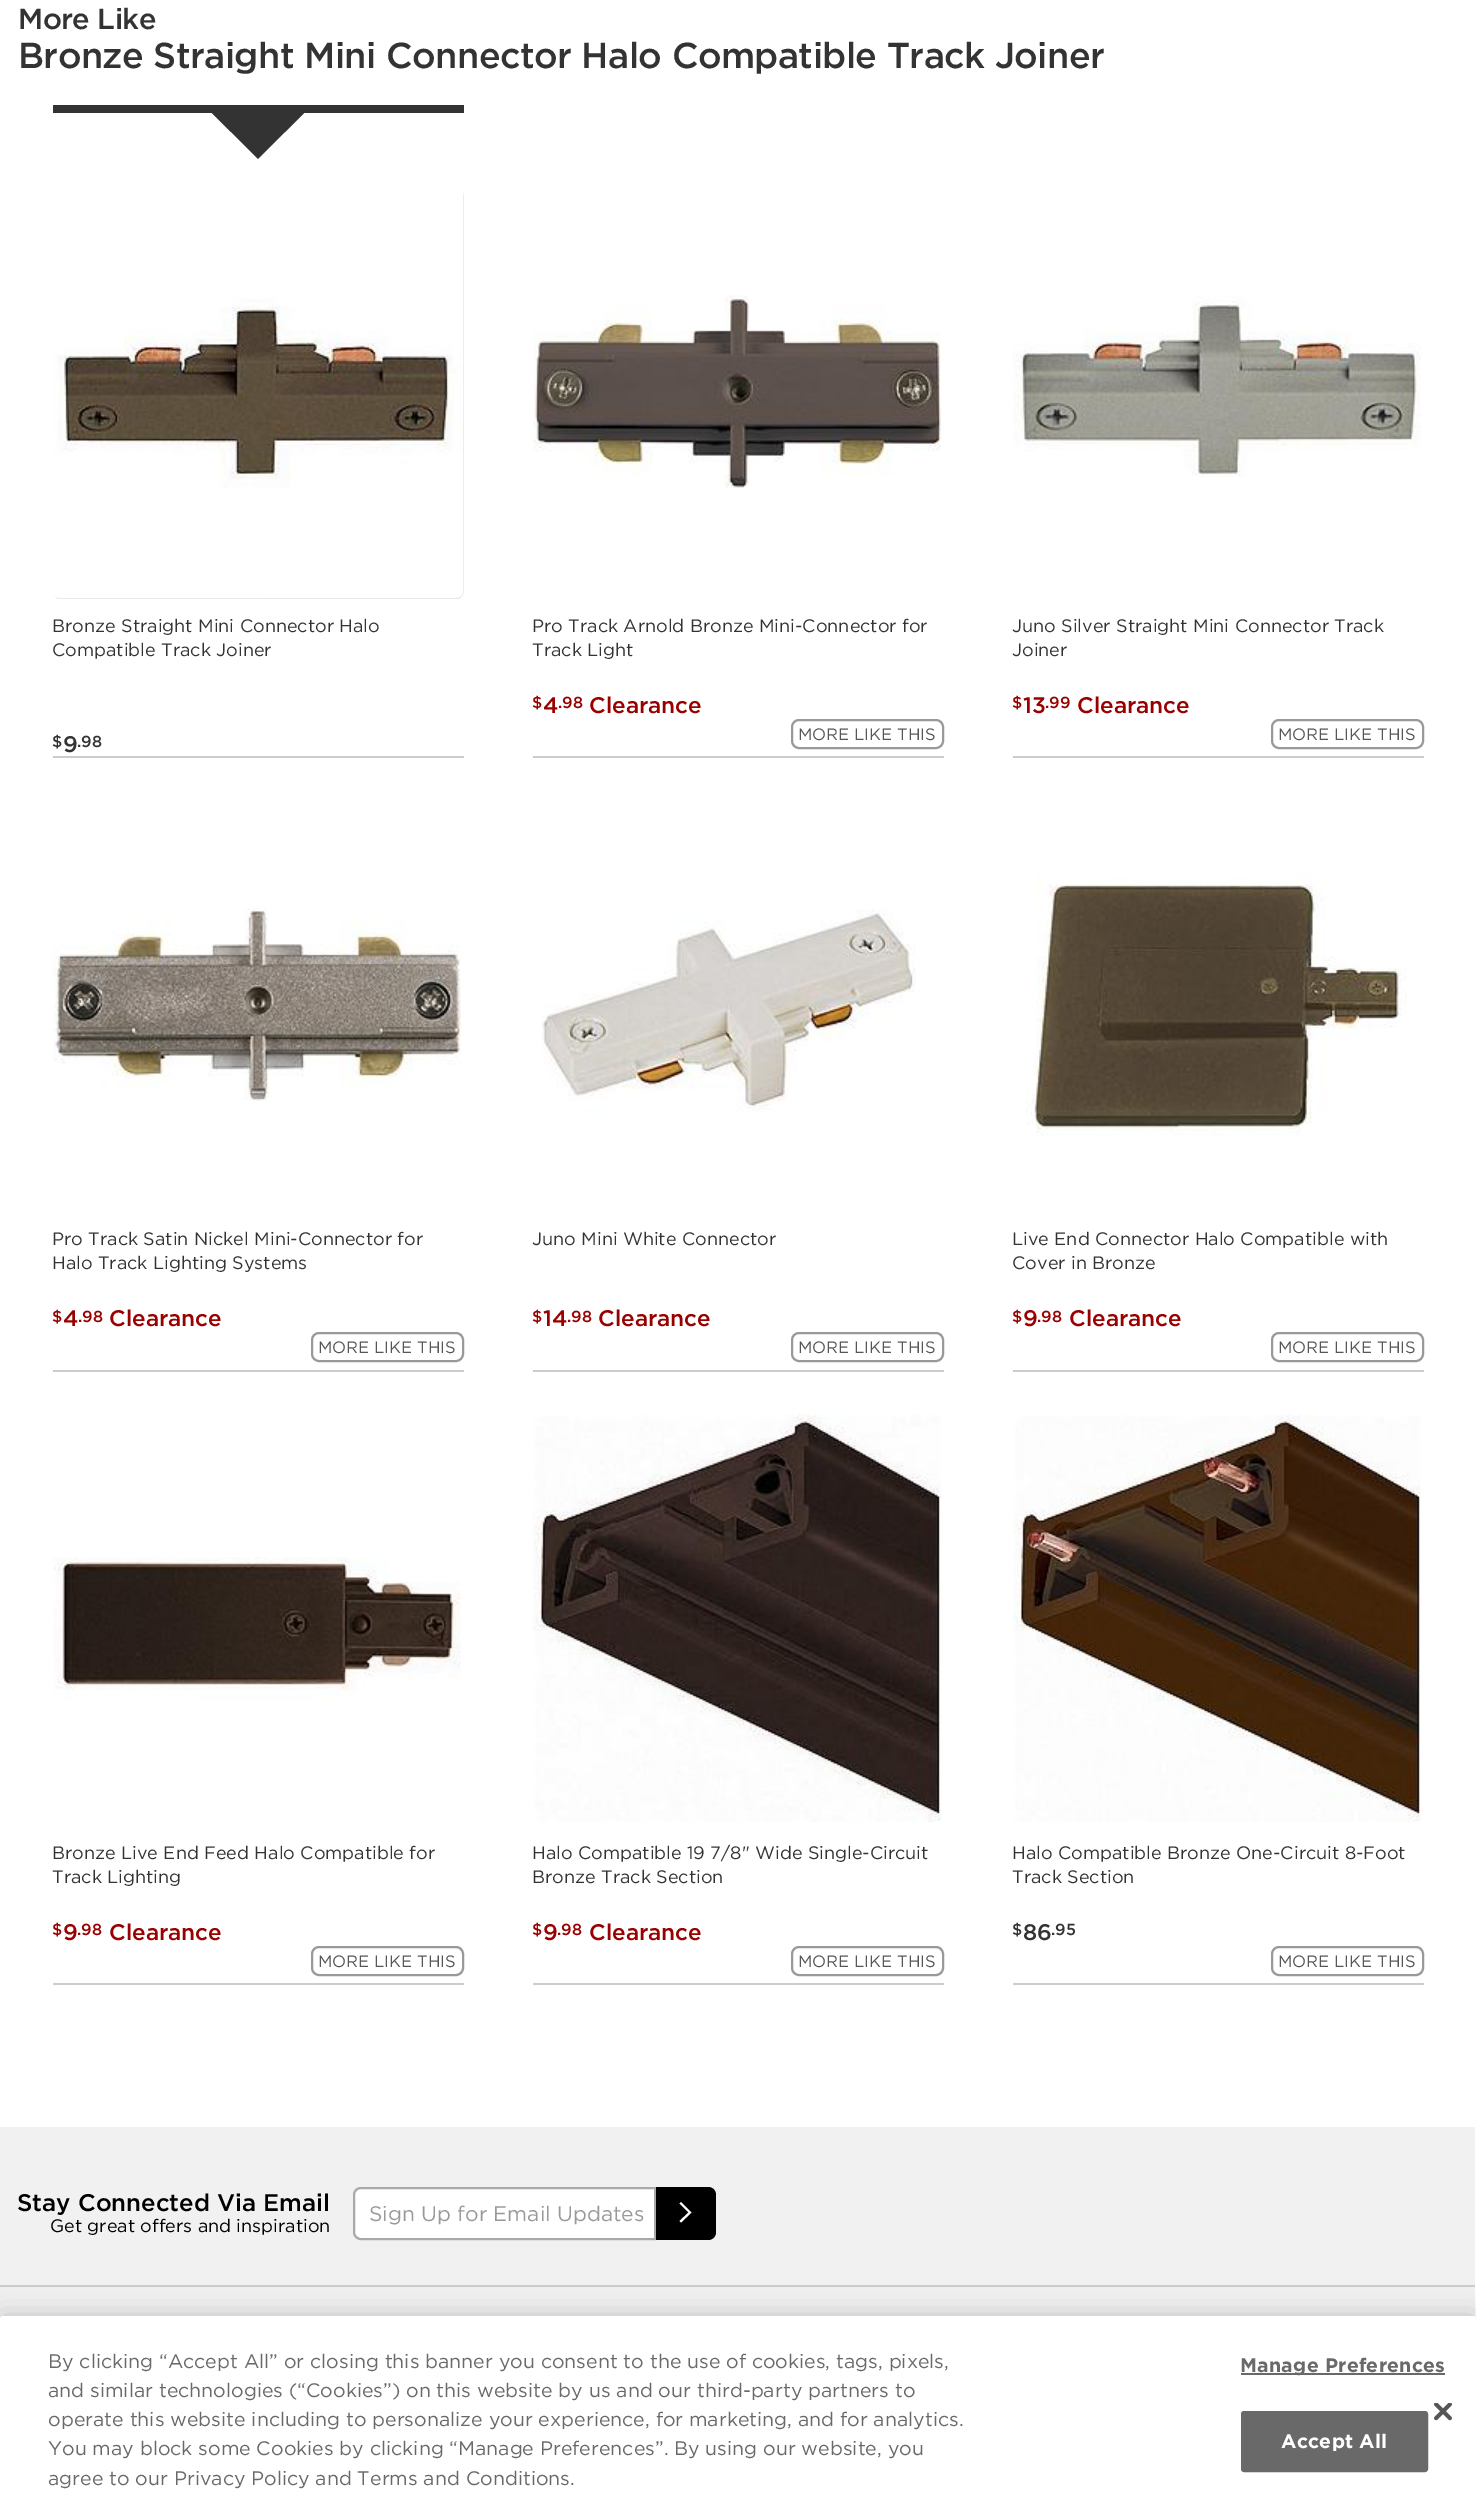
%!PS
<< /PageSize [1476 2507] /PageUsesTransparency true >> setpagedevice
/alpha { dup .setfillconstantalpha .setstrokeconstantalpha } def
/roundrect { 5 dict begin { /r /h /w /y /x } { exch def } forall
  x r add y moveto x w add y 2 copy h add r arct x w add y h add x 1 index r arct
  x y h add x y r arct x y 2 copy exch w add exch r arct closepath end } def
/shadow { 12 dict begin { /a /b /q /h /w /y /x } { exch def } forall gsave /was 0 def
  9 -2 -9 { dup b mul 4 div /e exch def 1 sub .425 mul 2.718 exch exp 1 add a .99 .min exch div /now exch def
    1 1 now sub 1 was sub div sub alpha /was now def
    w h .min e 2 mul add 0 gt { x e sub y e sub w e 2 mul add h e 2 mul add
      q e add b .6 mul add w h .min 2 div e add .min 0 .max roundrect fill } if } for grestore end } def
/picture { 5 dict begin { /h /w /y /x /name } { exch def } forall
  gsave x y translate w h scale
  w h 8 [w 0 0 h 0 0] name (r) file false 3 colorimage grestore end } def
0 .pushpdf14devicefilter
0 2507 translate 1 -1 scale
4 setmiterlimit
1 setgray
0 0 1476 2507 rectfill
/Gotham-Medium [29 0 0 -29 0 0] selectfont
0.2 setgray
18 29 moveto -0.6 0 (More Like) ashow
/Gotham-Medium [36 0 0 -36 0 0] selectfont
18 68 moveto -0.6 0 (Bronze Straight Mini Connector Halo Compatible Track Joiner) ashow
0.8 setgray
53 756 411 2 rectfill
0.2 setgray
53 105 411 8 rectfill
gsave
53 105 411 75 rectclip
newpath 258 0 moveto 338 79 lineto 258 159 lineto 178 79 lineto closepath fill
grestore
gsave 53 188 411 411 8 roundrect clip newpath
<< /ShadingType 2 /ColorSpace /DeviceRGB /Coords [0 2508 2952 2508] /Extend [true true] /Function << /FunctionType 3 /Domain [0 1] /Functions [<< /FunctionType 2 /Domain [0 1] /C0 [0.925 0.925 0.925] /C1 [0.875 0.875 0.875] /N 1 >> << /FunctionType 2 /Domain [0 1] /C0 [0.875 0.875 0.875] /C1 [0.882 0.882 0.882] /N 1 >> << /FunctionType 2 /Domain [0 1] /C0 [0.882 0.882 0.882] /C1 [0.925 0.925 0.925] /N 1 >>] /Bounds [0.45 0.5] /Encode [0 1 0 1 0 1] >> >> shfill grestore
(img1.rgb) 53 188 411 410 picture
/Gotham-Regular [18 0 0 -18 0 0] selectfont
52 632 moveto (Bronze Straight Mini Connector Halo) show
52 656 moveto (Compatible Track Joiner) show
/Gotham-Medium [16 0 0 -16 0 0] selectfont
52 747 moveto ($) show
/Gotham-Medium [22.5 0 0 -22.5 0 0] selectfont
63 752 moveto (9) show
/Gotham-Medium [16 0 0 -16 0 0] selectfont
77 747 moveto (.98) show
0.8 setgray
533 756 411 2 rectfill
(img2.rgb) 533 295 408 193 picture
/Gotham-Regular [18 0 0 -18 0 0] selectfont
0.2 setgray
532 632 moveto (Pro Track Arnold Bronze Mini-Connector for) show
532 656 moveto (Track Light) show
/Gotham-Medium [16 0 0 -16 0 0] selectfont
0.6 0 0 setrgbcolor
532 708 moveto ($) show
/Gotham-Medium [22.5 0 0 -22.5 0 0] selectfont
543 713 moveto (4) show
/Gotham-Medium [16 0 0 -16 0 0] selectfont
558 708 moveto (.98) show
/Gotham-Medium [22.5 0 0 -22.5 0 0] selectfont
589 713 moveto (Clearance) show
0.6 setgray
2 setlinewidth
792 720 151 28 7 roundrect stroke
/Gotham-Regular [16.5 0 0 -16.5 0 0] selectfont
0.337 setgray
798 740 moveto (MORE LIKE THIS) show
0.8 setgray
1013 756 411 2 rectfill
(img3.rgb) 1013 295 408 182 picture
/Gotham-Regular [18 0 0 -18 0 0] selectfont
0.2 setgray
1012 632 moveto (Juno Silver Straight Mini Connector Track) show
1012 656 moveto (Joiner) show
/Gotham-Medium [16 0 0 -16 0 0] selectfont
0.6 0 0 setrgbcolor
1012 708 moveto ($) show
/Gotham-Medium [22.5 0 0 -22.5 0 0] selectfont
1023 713 moveto (13) show
/Gotham-Medium [16 0 0 -16 0 0] selectfont
1045 708 moveto (.99) show
/Gotham-Medium [22.5 0 0 -22.5 0 0] selectfont
1077 713 moveto (Clearance) show
0.6 setgray
1272 720 151 28 7 roundrect stroke
/Gotham-Regular [16.5 0 0 -16.5 0 0] selectfont
0.337 setgray
1278 740 moveto (MORE LIKE THIS) show
0.8 setgray
53 1370 411 2 rectfill
(img4.rgb) 53 906 408 195 picture
/Gotham-Regular [18 0 0 -18 0 0] selectfont
0.2 setgray
52 1245 moveto (Pro Track Satin Nickel Mini-Connector for) show
52 1269 moveto (Halo Track Lighting Systems) show
/Gotham-Medium [16 0 0 -16 0 0] selectfont
0.6 0 0 setrgbcolor
52 1322 moveto ($) show
/Gotham-Medium [22.5 0 0 -22.5 0 0] selectfont
63 1326 moveto (4) show
/Gotham-Medium [16 0 0 -16 0 0] selectfont
78 1322 moveto (.98) show
/Gotham-Medium [22.5 0 0 -22.5 0 0] selectfont
109 1326 moveto (Clearance) show
0.6 setgray
312 1333 151 28 7 roundrect stroke
/Gotham-Regular [16.5 0 0 -16.5 0 0] selectfont
0.337 setgray
318 1353 moveto (MORE LIKE THIS) show
0.8 setgray
533 1370 411 2 rectfill
(img5.rgb) 541 909 375 203 picture
/Gotham-Regular [18 0 0 -18 0 0] selectfont
0.2 setgray
532 1245 moveto (Juno Mini White Connector) show
/Gotham-Medium [16 0 0 -16 0 0] selectfont
0.6 0 0 setrgbcolor
532 1322 moveto ($) show
/Gotham-Medium [22.5 0 0 -22.5 0 0] selectfont
543 1326 moveto (14) show
/Gotham-Medium [16 0 0 -16 0 0] selectfont
567 1322 moveto (.98) show
/Gotham-Medium [22.5 0 0 -22.5 0 0] selectfont
598 1326 moveto (Clearance) show
0.6 setgray
792 1333 151 28 7 roundrect stroke
/Gotham-Regular [16.5 0 0 -16.5 0 0] selectfont
0.337 setgray
798 1353 moveto (MORE LIKE THIS) show
0.8 setgray
1013 1370 411 2 rectfill
(img6.rgb) 1026 873 381 263 picture
/Gotham-Regular [18 0 0 -18 0 0] selectfont
0.2 setgray
1012 1245 moveto (Live End Connector Halo Compatible with) show
1012 1269 moveto (Cover in Bronze) show
/Gotham-Medium [16 0 0 -16 0 0] selectfont
0.6 0 0 setrgbcolor
1012 1322 moveto ($) show
/Gotham-Medium [22.5 0 0 -22.5 0 0] selectfont
1023 1326 moveto (9) show
/Gotham-Medium [16 0 0 -16 0 0] selectfont
1037 1322 moveto (.98) show
/Gotham-Medium [22.5 0 0 -22.5 0 0] selectfont
1069 1326 moveto (Clearance) show
0.6 setgray
1272 1333 151 28 7 roundrect stroke
/Gotham-Regular [16.5 0 0 -16.5 0 0] selectfont
0.337 setgray
1278 1353 moveto (MORE LIKE THIS) show
0.8 setgray
53 1983 411 2 rectfill
(img7.rgb) 53 1557 408 144 picture
/Gotham-Regular [18 0 0 -18 0 0] selectfont
0.2 setgray
52 1859 moveto (Bronze Live End Feed Halo Compatible for) show
52 1883 moveto (Track Lighting) show
/Gotham-Medium [16 0 0 -16 0 0] selectfont
0.6 0 0 setrgbcolor
52 1935 moveto ($) show
/Gotham-Medium [22.5 0 0 -22.5 0 0] selectfont
63 1940 moveto (9) show
/Gotham-Medium [16 0 0 -16 0 0] selectfont
77 1935 moveto (.98) show
/Gotham-Medium [22.5 0 0 -22.5 0 0] selectfont
109 1940 moveto (Clearance) show
0.6 setgray
312 1947 151 28 7 roundrect stroke
/Gotham-Regular [16.5 0 0 -16.5 0 0] selectfont
0.337 setgray
318 1967 moveto (MORE LIKE THIS) show
0.8 setgray
533 1983 411 2 rectfill
(img8.rgb) 533 1414 409 408 picture
/Gotham-Regular [18 0 0 -18 0 0] selectfont
0.2 setgray
532 1859 moveto (Halo Compatible 19 7/8" Wide Single-Circuit) show
532 1883 moveto (Bronze Track Section) show
/Gotham-Medium [16 0 0 -16 0 0] selectfont
0.6 0 0 setrgbcolor
532 1935 moveto ($) show
/Gotham-Medium [22.5 0 0 -22.5 0 0] selectfont
543 1940 moveto (9) show
/Gotham-Medium [16 0 0 -16 0 0] selectfont
557 1935 moveto (.98) show
/Gotham-Medium [22.5 0 0 -22.5 0 0] selectfont
589 1940 moveto (Clearance) show
0.6 setgray
792 1947 151 28 7 roundrect stroke
/Gotham-Regular [16.5 0 0 -16.5 0 0] selectfont
0.337 setgray
798 1967 moveto (MORE LIKE THIS) show
0.8 setgray
1013 1983 411 2 rectfill
(img9.rgb) 1013 1414 409 408 picture
/Gotham-Regular [18 0 0 -18 0 0] selectfont
0.2 setgray
1012 1859 moveto (Halo Compatible Bronze One-Circuit 8-Foot) show
1012 1883 moveto (Track Section) show
/Gotham-Medium [16 0 0 -16 0 0] selectfont
1012 1935 moveto ($) show
/Gotham-Medium [22.5 0 0 -22.5 0 0] selectfont
1023 1940 moveto (86) show
/Gotham-Medium [16 0 0 -16 0 0] selectfont
1051 1935 moveto (.95) show
0.6 setgray
1272 1947 151 28 7 roundrect stroke
/Gotham-Regular [16.5 0 0 -16.5 0 0] selectfont
0.337 setgray
1278 1967 moveto (MORE LIKE THIS) show
0.945 setgray
0 2127 1475 380 rectfill
0.8 setgray
0 2285 1475 2 rectfill
/Gotham-Medium [24 0 0 -24 0 0] selectfont
0 setgray
17 2211 moveto (Stay Connected Via Email) show
/Gotham-Regular [18 0 0 -18 0 0] selectfont
50 2232 moveto (Get great offers and inspiration) show
1 setgray
newpath 361 2188 moveto 655 2188 lineto 655 2239 lineto 361 2239 lineto 357 2239 354 2236 354 2232 curveto 354 2195 lineto 354 2191 357 2188 361 2188 curveto closepath gsave fill grestore
0.663 setgray
stroke
/Gotham-Regular [21 0 0 -21 0 0] selectfont
0.6 setgray
369 2221 moveto (Sign Up for Email Updates) show
0 setgray
newpath 656 2187 moveto 708 2187 lineto 712.5 2187 716 2190.5 716 2195 curveto 716 2232 lineto 716 2236.5 712.5 2240 708 2240 curveto 656 2240 lineto closepath fill
1 setgray
newpath 681 2202 moveto 679.5 2203.5 lineto 688.5 2212.5 lineto 679.5 2221 lineto 681 2222.5 lineto 691.5 2212.5 lineto closepath fill
0 setgray
0 2316 1476 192 3 13.5 0.2 shadow
1 setgray
0 2316 1476 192 3 roundrect fill
/Gotham-Regular [19.5 0 0 -19.5 0 0] selectfont
0.412 setgray
48 2368 moveto (By clicking “Accept All” or closing this banner you consent to the use of cookies, tags, pixels,) show
48 2397 moveto (and similar technologies \(“Cookies”\) on this website by us and our third-party partners to) show
48 2426 moveto (operate this website including to personalize your experience, for marketing, and for analytics.) show
48 2455 moveto (You may block some Cookies by clicking “Manage Preferences”.) show
674 2455 moveto (By using our website, you) show
48 2485 moveto (agree to our Privacy Policy and Terms and Conditions.) show
1241 2373 204 2 rectfill
/Gotham-Bold [19.5 0 0 -19.5 0 0] selectfont
1240 2372 moveto 0.25 0 (Manage Preferences) ashow
1242 2412 185 59 2 roundrect gsave fill grestore
stroke
1 setgray
1281 2448 moveto 0.25 0 (Accept All) ashow
(img10.rgb) 1434 2403 18 18 picture
.poppdf14devicefilter showpage
